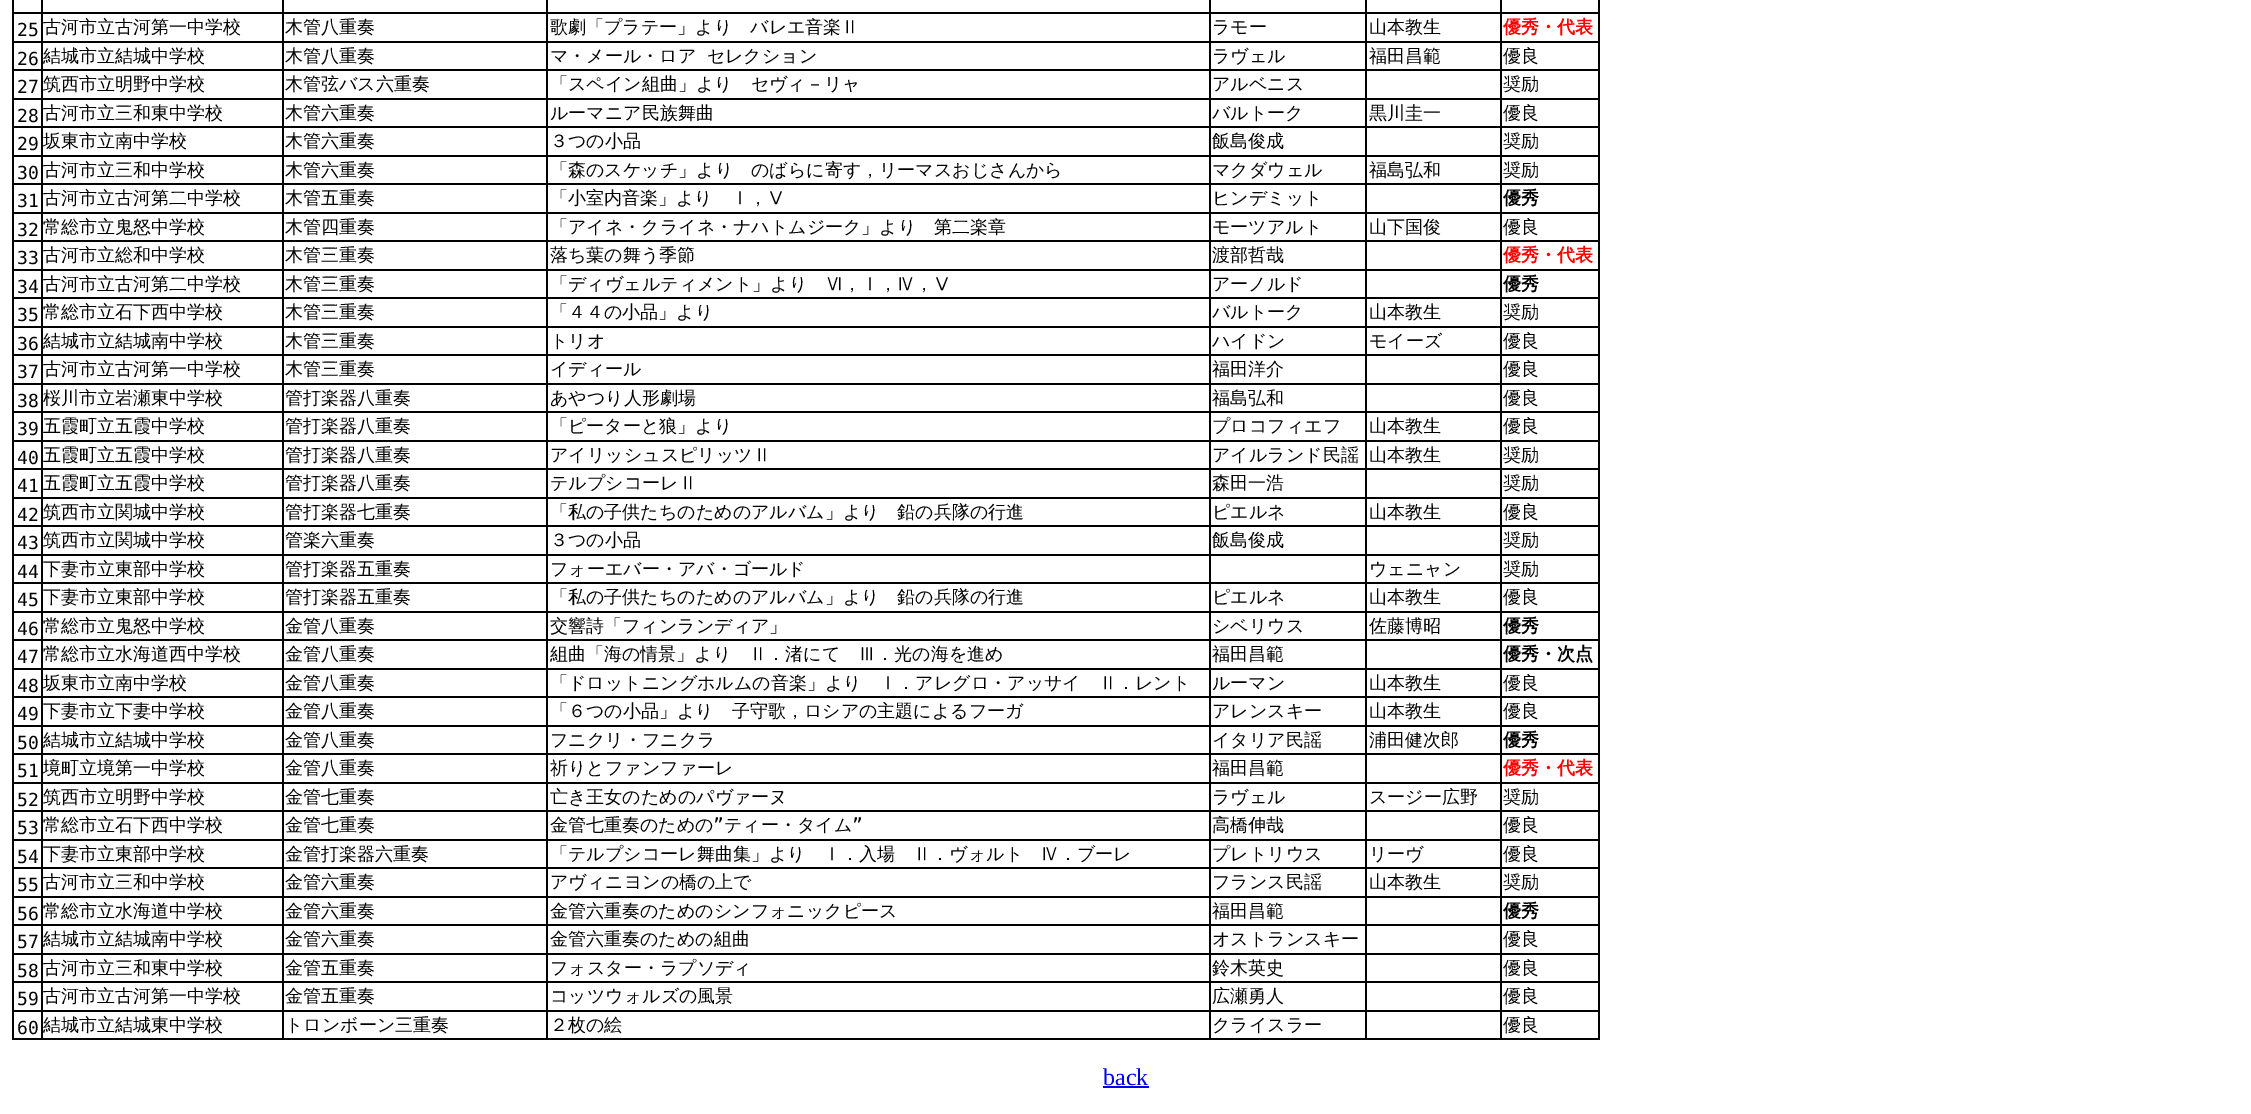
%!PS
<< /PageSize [2251 1114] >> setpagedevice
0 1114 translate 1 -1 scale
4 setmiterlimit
1 setgray
0 0 2251 1114 rectfill
0 setgray
1598 611 2 429 rectfill
1598 183 2 429 rectfill
1598 0 2 185 rectfill
1500 1038 99 2 rectfill
1500 1010 2 30 rectfill
1500 1010 99 2 rectfill
1500 981 2 30 rectfill
1500 981 99 2 rectfill
1500 953 2 30 rectfill
1500 953 99 2 rectfill
1500 924 2 30 rectfill
1500 924 99 2 rectfill
1500 896 2 30 rectfill
1500 896 99 2 rectfill
1500 867 2 30 rectfill
1500 867 99 2 rectfill
1500 839 2 30 rectfill
1500 839 99 2 rectfill
1500 810 2 30 rectfill
1500 810 99 2 rectfill
1500 782 2 30 rectfill
1500 782 99 2 rectfill
1500 753 2 30 rectfill
1500 753 99 2 rectfill
1500 725 2 30 rectfill
1500 725 99 2 rectfill
1500 696 2 30 rectfill
1500 696 99 2 rectfill
1500 668 2 30 rectfill
1500 668 99 2 rectfill
1500 639 2 30 rectfill
1500 639 99 2 rectfill
1500 611 2 30 rectfill
1500 611 99 2 rectfill
1500 582 2 30 rectfill
1500 582 99 2 rectfill
1500 554 2 30 rectfill
1500 554 99 2 rectfill
1500 525 2 30 rectfill
1500 525 99 2 rectfill
1500 497 2 30 rectfill
1500 497 99 2 rectfill
1500 468 2 30 rectfill
1500 468 99 2 rectfill
1500 440 2 30 rectfill
1500 440 99 2 rectfill
1500 411 2 30 rectfill
1500 411 99 2 rectfill
1500 383 2 30 rectfill
1500 383 99 2 rectfill
1500 354 2 30 rectfill
1500 354 99 2 rectfill
1500 326 2 30 rectfill
1500 326 99 2 rectfill
1500 297 2 30 rectfill
1500 297 99 2 rectfill
1500 269 2 30 rectfill
1500 269 99 2 rectfill
1500 240 2 30 rectfill
1500 240 99 2 rectfill
1500 212 2 30 rectfill
1500 212 99 2 rectfill
1500 183 2 30 rectfill
1500 183 99 2 rectfill
1500 155 2 30 rectfill
1500 155 99 2 rectfill
1500 126 2 30 rectfill
1500 126 99 2 rectfill
1500 98 2 30 rectfill
1500 98 99 2 rectfill
1500 69 2 30 rectfill
1500 69 99 2 rectfill
1500 41 2 30 rectfill
1500 41 99 2 rectfill
1500 12 2 30 rectfill
1500 12 99 2 rectfill
1500 0 2 14 rectfill
1365 1038 137 2 rectfill
1365 1010 2 30 rectfill
1365 1010 137 2 rectfill
1365 981 2 30 rectfill
1365 981 137 2 rectfill
1365 953 2 30 rectfill
1365 953 137 2 rectfill
1365 924 2 30 rectfill
1365 924 137 2 rectfill
1365 896 2 30 rectfill
1365 896 137 2 rectfill
1365 867 2 30 rectfill
1365 867 137 2 rectfill
1365 839 2 30 rectfill
1365 839 137 2 rectfill
1365 810 2 30 rectfill
1365 810 137 2 rectfill
1365 782 2 30 rectfill
1365 782 137 2 rectfill
1365 753 2 30 rectfill
1365 753 137 2 rectfill
1365 725 2 30 rectfill
1365 725 137 2 rectfill
1365 696 2 30 rectfill
1365 696 137 2 rectfill
1365 668 2 30 rectfill
1365 668 137 2 rectfill
1365 639 2 30 rectfill
1365 639 137 2 rectfill
1365 611 2 30 rectfill
1365 611 137 2 rectfill
1365 582 2 30 rectfill
1365 582 137 2 rectfill
1365 554 2 30 rectfill
1365 554 137 2 rectfill
1365 525 2 30 rectfill
1365 525 137 2 rectfill
1365 497 2 30 rectfill
1365 497 137 2 rectfill
1365 468 2 30 rectfill
1365 468 137 2 rectfill
1365 440 2 30 rectfill
1365 440 137 2 rectfill
1365 411 2 30 rectfill
1365 411 137 2 rectfill
1365 383 2 30 rectfill
1365 383 137 2 rectfill
1365 354 2 30 rectfill
1365 354 137 2 rectfill
1365 326 2 30 rectfill
1365 326 137 2 rectfill
1365 297 2 30 rectfill
1365 297 137 2 rectfill
1365 269 2 30 rectfill
1365 269 137 2 rectfill
1365 240 2 30 rectfill
1365 240 137 2 rectfill
1365 212 2 30 rectfill
1365 212 137 2 rectfill
1365 183 2 30 rectfill
1365 183 137 2 rectfill
1365 155 2 30 rectfill
1365 155 137 2 rectfill
1365 126 2 30 rectfill
1365 126 137 2 rectfill
1365 98 2 30 rectfill
1365 98 137 2 rectfill
1365 69 2 30 rectfill
1365 69 137 2 rectfill
1365 41 2 30 rectfill
1365 41 137 2 rectfill
1365 12 2 30 rectfill
1365 12 137 2 rectfill
1365 0 2 14 rectfill
1209 1038 158 2 rectfill
1209 1010 2 30 rectfill
1209 1010 158 2 rectfill
1209 981 2 30 rectfill
1209 981 158 2 rectfill
1209 953 2 30 rectfill
1209 953 158 2 rectfill
1209 924 2 30 rectfill
1209 924 158 2 rectfill
1209 896 2 30 rectfill
1209 896 158 2 rectfill
1209 867 2 30 rectfill
1209 867 158 2 rectfill
1209 839 2 30 rectfill
1209 839 158 2 rectfill
1209 810 2 30 rectfill
1209 810 158 2 rectfill
1209 782 2 30 rectfill
1209 782 158 2 rectfill
1209 753 2 30 rectfill
1209 753 158 2 rectfill
1209 725 2 30 rectfill
1209 725 158 2 rectfill
1209 696 2 30 rectfill
1209 696 158 2 rectfill
1209 668 2 30 rectfill
1209 668 158 2 rectfill
1209 639 2 30 rectfill
1209 639 158 2 rectfill
1209 611 2 30 rectfill
1209 611 158 2 rectfill
1209 582 2 30 rectfill
1209 582 158 2 rectfill
1209 554 2 30 rectfill
1209 554 158 2 rectfill
1209 525 2 30 rectfill
1209 525 158 2 rectfill
1209 497 2 30 rectfill
1209 497 158 2 rectfill
1209 468 2 30 rectfill
1209 468 158 2 rectfill
1209 440 2 30 rectfill
1209 440 158 2 rectfill
1209 411 2 30 rectfill
1209 411 158 2 rectfill
1209 383 2 30 rectfill
1209 383 158 2 rectfill
1209 354 2 30 rectfill
1209 354 158 2 rectfill
1209 326 2 30 rectfill
1209 326 158 2 rectfill
1209 297 2 30 rectfill
1209 297 158 2 rectfill
1209 269 2 30 rectfill
1209 269 158 2 rectfill
1209 240 2 30 rectfill
1209 240 158 2 rectfill
1209 212 2 30 rectfill
1209 212 158 2 rectfill
1209 183 2 30 rectfill
1209 183 158 2 rectfill
1209 155 2 30 rectfill
1209 155 158 2 rectfill
1209 126 2 30 rectfill
1209 126 158 2 rectfill
1209 98 2 30 rectfill
1209 98 158 2 rectfill
1209 69 2 30 rectfill
1209 69 158 2 rectfill
1209 41 2 30 rectfill
1209 41 158 2 rectfill
1209 12 2 30 rectfill
1209 12 158 2 rectfill
1209 0 2 14 rectfill
546 1038 665 2 rectfill
546 1010 2 30 rectfill
546 1010 665 2 rectfill
546 981 2 30 rectfill
546 981 665 2 rectfill
546 953 2 30 rectfill
546 953 665 2 rectfill
546 924 2 30 rectfill
546 924 665 2 rectfill
546 896 2 30 rectfill
546 896 665 2 rectfill
546 867 2 30 rectfill
546 867 665 2 rectfill
546 839 2 30 rectfill
546 839 665 2 rectfill
546 810 2 30 rectfill
546 810 665 2 rectfill
546 782 2 30 rectfill
546 782 665 2 rectfill
546 753 2 30 rectfill
546 753 665 2 rectfill
546 725 2 30 rectfill
546 725 665 2 rectfill
546 696 2 30 rectfill
546 696 665 2 rectfill
546 668 2 30 rectfill
546 668 665 2 rectfill
546 639 2 30 rectfill
546 639 665 2 rectfill
546 611 2 30 rectfill
546 611 665 2 rectfill
546 582 2 30 rectfill
546 582 665 2 rectfill
546 554 2 30 rectfill
546 554 665 2 rectfill
546 525 2 30 rectfill
546 525 665 2 rectfill
546 497 2 30 rectfill
546 497 665 2 rectfill
546 468 2 30 rectfill
546 468 665 2 rectfill
546 440 2 30 rectfill
546 440 665 2 rectfill
546 411 2 30 rectfill
546 411 665 2 rectfill
546 383 2 30 rectfill
546 383 665 2 rectfill
546 354 2 30 rectfill
546 354 665 2 rectfill
546 326 2 30 rectfill
546 326 665 2 rectfill
546 297 2 30 rectfill
546 297 665 2 rectfill
546 269 2 30 rectfill
546 269 665 2 rectfill
546 240 2 30 rectfill
546 240 665 2 rectfill
546 212 2 30 rectfill
546 212 665 2 rectfill
546 183 2 30 rectfill
546 183 665 2 rectfill
546 155 2 30 rectfill
546 155 665 2 rectfill
546 126 2 30 rectfill
546 126 665 2 rectfill
546 98 2 30 rectfill
546 98 665 2 rectfill
546 69 2 30 rectfill
546 69 665 2 rectfill
546 41 2 30 rectfill
546 41 665 2 rectfill
546 12 2 30 rectfill
546 12 665 2 rectfill
546 0 2 14 rectfill
282 1038 266 2 rectfill
282 1010 2 30 rectfill
282 1010 266 2 rectfill
282 981 2 30 rectfill
282 981 266 2 rectfill
282 953 2 30 rectfill
282 953 266 2 rectfill
282 924 2 30 rectfill
282 924 266 2 rectfill
282 896 2 30 rectfill
282 896 266 2 rectfill
282 867 2 30 rectfill
282 867 266 2 rectfill
282 839 2 30 rectfill
282 839 266 2 rectfill
282 810 2 30 rectfill
282 810 266 2 rectfill
282 782 2 30 rectfill
282 782 266 2 rectfill
282 753 2 30 rectfill
282 753 266 2 rectfill
282 725 2 30 rectfill
282 725 266 2 rectfill
282 696 2 30 rectfill
282 696 266 2 rectfill
282 668 2 30 rectfill
282 668 266 2 rectfill
282 639 2 30 rectfill
282 639 266 2 rectfill
282 611 2 30 rectfill
282 611 266 2 rectfill
282 582 2 30 rectfill
282 582 266 2 rectfill
282 554 2 30 rectfill
282 554 266 2 rectfill
282 525 2 30 rectfill
282 525 266 2 rectfill
282 497 2 30 rectfill
282 497 266 2 rectfill
282 468 2 30 rectfill
282 468 266 2 rectfill
282 440 2 30 rectfill
282 440 266 2 rectfill
282 411 2 30 rectfill
282 411 266 2 rectfill
282 383 2 30 rectfill
282 383 266 2 rectfill
282 354 2 30 rectfill
282 354 266 2 rectfill
282 326 2 30 rectfill
282 326 266 2 rectfill
282 297 2 30 rectfill
282 297 266 2 rectfill
282 269 2 30 rectfill
282 269 266 2 rectfill
282 240 2 30 rectfill
282 240 266 2 rectfill
282 212 2 30 rectfill
282 212 266 2 rectfill
282 183 2 30 rectfill
282 183 266 2 rectfill
282 155 2 30 rectfill
282 155 266 2 rectfill
282 126 2 30 rectfill
282 126 266 2 rectfill
282 98 2 30 rectfill
282 98 266 2 rectfill
282 69 2 30 rectfill
282 69 266 2 rectfill
282 41 2 30 rectfill
282 41 266 2 rectfill
282 12 2 30 rectfill
282 12 266 2 rectfill
282 0 2 14 rectfill
41 1038 243 2 rectfill
41 1010 2 30 rectfill
41 1010 243 2 rectfill
41 981 2 30 rectfill
41 981 243 2 rectfill
41 953 2 30 rectfill
41 953 243 2 rectfill
41 924 2 30 rectfill
41 924 243 2 rectfill
41 896 2 30 rectfill
41 896 243 2 rectfill
41 867 2 30 rectfill
41 867 243 2 rectfill
41 839 2 30 rectfill
41 839 243 2 rectfill
41 810 2 30 rectfill
41 810 243 2 rectfill
41 782 2 30 rectfill
41 782 243 2 rectfill
41 753 2 30 rectfill
41 753 243 2 rectfill
41 725 2 30 rectfill
41 725 243 2 rectfill
41 696 2 30 rectfill
41 696 243 2 rectfill
41 668 2 30 rectfill
41 668 243 2 rectfill
41 639 2 30 rectfill
41 639 243 2 rectfill
41 611 2 30 rectfill
41 611 243 2 rectfill
41 582 2 30 rectfill
41 582 243 2 rectfill
41 554 2 30 rectfill
41 554 243 2 rectfill
41 525 2 30 rectfill
41 525 243 2 rectfill
41 497 2 30 rectfill
41 497 243 2 rectfill
41 468 2 30 rectfill
41 468 243 2 rectfill
41 440 2 30 rectfill
41 440 243 2 rectfill
41 411 2 30 rectfill
41 411 243 2 rectfill
41 383 2 30 rectfill
41 383 243 2 rectfill
41 354 2 30 rectfill
41 354 243 2 rectfill
41 326 2 30 rectfill
41 326 243 2 rectfill
41 297 2 30 rectfill
41 297 243 2 rectfill
41 269 2 30 rectfill
41 269 243 2 rectfill
41 240 2 30 rectfill
41 240 243 2 rectfill
41 212 2 30 rectfill
41 212 243 2 rectfill
41 183 2 30 rectfill
41 183 243 2 rectfill
41 155 2 30 rectfill
41 155 243 2 rectfill
41 126 2 30 rectfill
41 126 243 2 rectfill
41 98 2 30 rectfill
41 98 243 2 rectfill
41 69 2 30 rectfill
41 69 243 2 rectfill
41 41 2 30 rectfill
41 41 243 2 rectfill
41 12 2 30 rectfill
41 12 243 2 rectfill
41 0 2 14 rectfill
12 1038 30 2 rectfill
12 1010 2 30 rectfill
12 1010 30 2 rectfill
12 981 2 30 rectfill
12 981 30 2 rectfill
12 953 2 30 rectfill
12 953 30 2 rectfill
12 924 2 30 rectfill
12 924 30 2 rectfill
12 896 2 30 rectfill
12 896 30 2 rectfill
12 867 2 30 rectfill
12 867 30 2 rectfill
12 839 2 30 rectfill
12 839 30 2 rectfill
12 810 2 30 rectfill
12 810 30 2 rectfill
12 782 2 30 rectfill
12 782 30 2 rectfill
12 753 2 30 rectfill
12 753 30 2 rectfill
12 725 2 30 rectfill
12 725 30 2 rectfill
12 696 2 30 rectfill
12 696 30 2 rectfill
12 668 2 30 rectfill
12 668 30 2 rectfill
12 639 2 30 rectfill
12 639 30 2 rectfill
12 611 2 30 rectfill
12 611 30 2 rectfill
12 582 2 30 rectfill
12 582 30 2 rectfill
12 554 2 30 rectfill
12 554 30 2 rectfill
12 525 2 30 rectfill
12 525 30 2 rectfill
12 497 2 30 rectfill
12 497 30 2 rectfill
12 468 2 30 rectfill
12 468 30 2 rectfill
12 440 2 30 rectfill
12 440 30 2 rectfill
12 411 2 30 rectfill
12 411 30 2 rectfill
12 383 2 30 rectfill
12 383 30 2 rectfill
12 354 2 30 rectfill
12 354 30 2 rectfill
12 326 2 30 rectfill
12 326 30 2 rectfill
12 297 2 30 rectfill
12 297 30 2 rectfill
12 269 2 30 rectfill
12 269 30 2 rectfill
12 240 2 30 rectfill
12 240 30 2 rectfill
12 212 2 30 rectfill
12 212 30 2 rectfill
12 183 2 30 rectfill
12 183 30 2 rectfill
12 155 2 30 rectfill
12 155 30 2 rectfill
12 126 2 30 rectfill
12 126 30 2 rectfill
12 98 2 30 rectfill
12 98 30 2 rectfill
12 69 2 30 rectfill
12 69 30 2 rectfill
12 41 2 30 rectfill
12 41 30 2 rectfill
12 12 2 30 rectfill
12 12 30 2 rectfill
12 0 2 14 rectfill
/DejaVuSansMono-Regular [18 0 0 -18 0 0] selectfont
17 36 moveto (25) show
/WenQuanYiZenHei-Medium [18 0 0 -18 0 0] selectfont
43 33 moveto (古河市立古河第一中学校) show
285 33 moveto (木管八重奏) show
550 33 moveto (歌劇「プラテー」より　バレエ音楽Ⅱ) show
1212 33 moveto (ラモー) show
1369 33 moveto (山本教生) show
/WenQuanYiZenHei-Bold [18 0 0 -18 0 0] selectfont
1 0 0 setrgbcolor
1503 33 moveto (優秀・代表) show
/DejaVuSansMono-Regular [18 0 0 -18 0 0] selectfont
0 setgray
17 65 moveto (26) show
/WenQuanYiZenHei-Medium [18 0 0 -18 0 0] selectfont
43 62 moveto (結城市立結城中学校) show
285 62 moveto (木管八重奏) show
550 62 moveto 5 0 32 (マ・メール・ロア セレクション) widthshow
1212 62 moveto (ラヴェル) show
1369 62 moveto (福田昌範) show
1503 62 moveto (優良) show
/DejaVuSansMono-Regular [18 0 0 -18 0 0] selectfont
17 93 moveto (27) show
/WenQuanYiZenHei-Medium [18 0 0 -18 0 0] selectfont
43 90 moveto (筑西市立明野中学校) show
285 90 moveto (木管弦バス六重奏) show
550 90 moveto (「スペイン組曲」より　セヴィ－リャ) show
1212 90 moveto (アルベニス) show
1503 90 moveto (奨励) show
/DejaVuSansMono-Regular [18 0 0 -18 0 0] selectfont
17 122 moveto (28) show
/WenQuanYiZenHei-Medium [18 0 0 -18 0 0] selectfont
43 119 moveto (古河市立三和東中学校) show
285 119 moveto (木管六重奏) show
550 119 moveto (ルーマニア民族舞曲) show
1212 119 moveto (バルトーク) show
1369 119 moveto (黒川圭一) show
1503 119 moveto (優良) show
/DejaVuSansMono-Regular [18 0 0 -18 0 0] selectfont
17 150 moveto (29) show
/WenQuanYiZenHei-Medium [18 0 0 -18 0 0] selectfont
43 147 moveto (坂東市立南中学校) show
285 147 moveto (木管六重奏) show
550 147 moveto (３つの小品) show
1212 147 moveto (飯島俊成) show
1503 147 moveto (奨励) show
/DejaVuSansMono-Regular [18 0 0 -18 0 0] selectfont
17 179 moveto (30) show
/WenQuanYiZenHei-Medium [18 0 0 -18 0 0] selectfont
43 176 moveto (古河市立三和中学校) show
285 176 moveto (木管六重奏) show
550 176 moveto (「森のスケッチ」より　のばらに寄す，リーマスおじさんから) show
1212 176 moveto (マクダウェル) show
1369 176 moveto (福島弘和) show
1503 176 moveto (奨励) show
/DejaVuSansMono-Regular [18 0 0 -18 0 0] selectfont
17 207 moveto (31) show
/WenQuanYiZenHei-Medium [18 0 0 -18 0 0] selectfont
43 204 moveto (古河市立古河第二中学校) show
285 204 moveto (木管五重奏) show
550 204 moveto (「小室内音楽」より　Ⅰ，Ⅴ) show
1212 204 moveto (ヒンデミット) show
/WenQuanYiZenHei-Bold [18 0 0 -18 0 0] selectfont
1503 204 moveto (優秀) show
/DejaVuSansMono-Regular [18 0 0 -18 0 0] selectfont
17 236 moveto (32) show
/WenQuanYiZenHei-Medium [18 0 0 -18 0 0] selectfont
43 233 moveto (常総市立鬼怒中学校) show
285 233 moveto (木管四重奏) show
550 233 moveto (「アイネ・クライネ・ナハトムジーク」より　第二楽章) show
1212 233 moveto (モーツアルト) show
1369 233 moveto (山下国俊) show
1503 233 moveto (優良) show
/DejaVuSansMono-Regular [18 0 0 -18 0 0] selectfont
17 264 moveto (33) show
/WenQuanYiZenHei-Medium [18 0 0 -18 0 0] selectfont
43 261 moveto (古河市立総和中学校) show
285 261 moveto (木管三重奏) show
550 261 moveto (落ち葉の舞う季節) show
1212 261 moveto (渡部哲哉) show
/WenQuanYiZenHei-Bold [18 0 0 -18 0 0] selectfont
1 0 0 setrgbcolor
1503 261 moveto (優秀・代表) show
/DejaVuSansMono-Regular [18 0 0 -18 0 0] selectfont
0 setgray
17 293 moveto (34) show
/WenQuanYiZenHei-Medium [18 0 0 -18 0 0] selectfont
43 290 moveto (古河市立古河第二中学校) show
285 290 moveto (木管三重奏) show
550 290 moveto (「ディヴェルティメント」より　Ⅵ，Ⅰ，Ⅳ，Ⅴ) show
1212 290 moveto (アーノルド) show
/WenQuanYiZenHei-Bold [18 0 0 -18 0 0] selectfont
1503 290 moveto (優秀) show
/DejaVuSansMono-Regular [18 0 0 -18 0 0] selectfont
17 321 moveto (35) show
/WenQuanYiZenHei-Medium [18 0 0 -18 0 0] selectfont
43 318 moveto (常総市立石下西中学校) show
285 318 moveto (木管三重奏) show
550 318 moveto (「４４の小品」より) show
1212 318 moveto (バルトーク) show
1369 318 moveto (山本教生) show
1503 318 moveto (奨励) show
/DejaVuSansMono-Regular [18 0 0 -18 0 0] selectfont
17 350 moveto (36) show
/WenQuanYiZenHei-Medium [18 0 0 -18 0 0] selectfont
43 347 moveto (結城市立結城南中学校) show
285 347 moveto (木管三重奏) show
550 347 moveto (トリオ) show
1212 347 moveto (ハイドン) show
1369 347 moveto (モイーズ) show
1503 347 moveto (優良) show
/DejaVuSansMono-Regular [18 0 0 -18 0 0] selectfont
17 378 moveto (37) show
/WenQuanYiZenHei-Medium [18 0 0 -18 0 0] selectfont
43 375 moveto (古河市立古河第一中学校) show
285 375 moveto (木管三重奏) show
550 375 moveto (イディール) show
1212 375 moveto (福田洋介) show
1503 375 moveto (優良) show
/DejaVuSansMono-Regular [18 0 0 -18 0 0] selectfont
17 407 moveto (38) show
/WenQuanYiZenHei-Medium [18 0 0 -18 0 0] selectfont
43 404 moveto (桜川市立岩瀬東中学校) show
285 404 moveto (管打楽器八重奏) show
550 404 moveto (あやつり人形劇場) show
1212 404 moveto (福島弘和) show
1503 404 moveto (優良) show
/DejaVuSansMono-Regular [18 0 0 -18 0 0] selectfont
17 435 moveto (39) show
/WenQuanYiZenHei-Medium [18 0 0 -18 0 0] selectfont
43 432 moveto (五霞町立五霞中学校) show
285 432 moveto (管打楽器八重奏) show
550 432 moveto (「ピーターと狼」より) show
1212 432 moveto (プロコフィエフ) show
1369 432 moveto (山本教生) show
1503 432 moveto (優良) show
/DejaVuSansMono-Regular [18 0 0 -18 0 0] selectfont
17 464 moveto (40) show
/WenQuanYiZenHei-Medium [18 0 0 -18 0 0] selectfont
43 461 moveto (五霞町立五霞中学校) show
285 461 moveto (管打楽器八重奏) show
550 461 moveto (アイリッシュスピリッツⅡ) show
1212 461 moveto (アイルランド民謡) show
1369 461 moveto (山本教生) show
1503 461 moveto (奨励) show
/DejaVuSansMono-Regular [18 0 0 -18 0 0] selectfont
17 492 moveto (41) show
/WenQuanYiZenHei-Medium [18 0 0 -18 0 0] selectfont
43 489 moveto (五霞町立五霞中学校) show
285 489 moveto (管打楽器八重奏) show
550 489 moveto (テルプシコーレⅡ) show
1212 489 moveto (森田一浩) show
1503 489 moveto (奨励) show
/DejaVuSansMono-Regular [18 0 0 -18 0 0] selectfont
17 521 moveto (42) show
/WenQuanYiZenHei-Medium [18 0 0 -18 0 0] selectfont
43 518 moveto (筑西市立関城中学校) show
285 518 moveto (管打楽器七重奏) show
550 518 moveto (「私の子供たちのためのアルバム」より　鉛の兵隊の行進) show
1212 518 moveto (ピエルネ) show
1369 518 moveto (山本教生) show
1503 518 moveto (優良) show
/DejaVuSansMono-Regular [18 0 0 -18 0 0] selectfont
17 549 moveto (43) show
/WenQuanYiZenHei-Medium [18 0 0 -18 0 0] selectfont
43 546 moveto (筑西市立関城中学校) show
285 546 moveto (管楽六重奏) show
550 546 moveto (３つの小品) show
1212 546 moveto (飯島俊成) show
1503 546 moveto (奨励) show
/DejaVuSansMono-Regular [18 0 0 -18 0 0] selectfont
17 578 moveto (44) show
/WenQuanYiZenHei-Medium [18 0 0 -18 0 0] selectfont
43 575 moveto (下妻市立東部中学校) show
285 575 moveto (管打楽器五重奏) show
550 575 moveto (フォーエバー・アバ・ゴールド) show
1369 575 moveto (ウェニャン) show
1503 575 moveto (奨励) show
/DejaVuSansMono-Regular [18 0 0 -18 0 0] selectfont
17 606 moveto (45) show
/WenQuanYiZenHei-Medium [18 0 0 -18 0 0] selectfont
43 603 moveto (下妻市立東部中学校) show
285 603 moveto (管打楽器五重奏) show
550 603 moveto (「私の子供たちのためのアルバム」より　鉛の兵隊の行進) show
1212 603 moveto (ピエルネ) show
1369 603 moveto (山本教生) show
1503 603 moveto (優良) show
/DejaVuSansMono-Regular [18 0 0 -18 0 0] selectfont
17 635 moveto (46) show
/WenQuanYiZenHei-Medium [18 0 0 -18 0 0] selectfont
43 632 moveto (常総市立鬼怒中学校) show
285 632 moveto (金管八重奏) show
550 632 moveto (交響詩「フィンランディア」) show
1212 632 moveto (シベリウス) show
1369 632 moveto (佐藤博昭) show
/WenQuanYiZenHei-Bold [18 0 0 -18 0 0] selectfont
1503 632 moveto (優秀) show
/DejaVuSansMono-Regular [18 0 0 -18 0 0] selectfont
17 663 moveto (47) show
/WenQuanYiZenHei-Medium [18 0 0 -18 0 0] selectfont
43 660 moveto (常総市立水海道西中学校) show
285 660 moveto (金管八重奏) show
550 660 moveto (組曲「海の情景」より　Ⅱ．渚にて　Ⅲ．光の海を進め) show
1212 660 moveto (福田昌範) show
/WenQuanYiZenHei-Bold [18 0 0 -18 0 0] selectfont
1503 660 moveto (優秀・次点) show
/DejaVuSansMono-Regular [18 0 0 -18 0 0] selectfont
17 692 moveto (48) show
/WenQuanYiZenHei-Medium [18 0 0 -18 0 0] selectfont
43 689 moveto (坂東市立南中学校) show
285 689 moveto (金管八重奏) show
550 689 moveto (「ドロットニングホルムの音楽」より　Ⅰ．アレグロ・アッサイ　Ⅱ．レント) show
1212 689 moveto (ルーマン) show
1369 689 moveto (山本教生) show
1503 689 moveto (優良) show
/DejaVuSansMono-Regular [18 0 0 -18 0 0] selectfont
17 720 moveto (49) show
/WenQuanYiZenHei-Medium [18 0 0 -18 0 0] selectfont
43 717 moveto (下妻市立下妻中学校) show
285 717 moveto (金管八重奏) show
550 717 moveto (「６つの小品」より　子守歌，ロシアの主題によるフーガ) show
1212 717 moveto (アレンスキー) show
1369 717 moveto (山本教生) show
1503 717 moveto (優良) show
/DejaVuSansMono-Regular [18 0 0 -18 0 0] selectfont
17 749 moveto (50) show
/WenQuanYiZenHei-Medium [18 0 0 -18 0 0] selectfont
43 746 moveto (結城市立結城中学校) show
285 746 moveto (金管八重奏) show
550 746 moveto (フニクリ・フニクラ) show
1212 746 moveto (イタリア民謡) show
1369 746 moveto (浦田健次郎) show
/WenQuanYiZenHei-Bold [18 0 0 -18 0 0] selectfont
1503 746 moveto (優秀) show
/DejaVuSansMono-Regular [18 0 0 -18 0 0] selectfont
17 777 moveto (51) show
/WenQuanYiZenHei-Medium [18 0 0 -18 0 0] selectfont
43 774 moveto (境町立境第一中学校) show
285 774 moveto (金管八重奏) show
550 774 moveto (祈りとファンファーレ) show
1212 774 moveto (福田昌範) show
/WenQuanYiZenHei-Bold [18 0 0 -18 0 0] selectfont
1 0 0 setrgbcolor
1503 774 moveto (優秀・代表) show
/DejaVuSansMono-Regular [18 0 0 -18 0 0] selectfont
0 setgray
17 806 moveto (52) show
/WenQuanYiZenHei-Medium [18 0 0 -18 0 0] selectfont
43 803 moveto (筑西市立明野中学校) show
285 803 moveto (金管七重奏) show
550 803 moveto (亡き王女のためのパヴァーヌ) show
1212 803 moveto (ラヴェル) show
1369 803 moveto (スージー広野) show
1503 803 moveto (奨励) show
/DejaVuSansMono-Regular [18 0 0 -18 0 0] selectfont
17 834 moveto (53) show
/WenQuanYiZenHei-Medium [18 0 0 -18 0 0] selectfont
43 831 moveto (常総市立石下西中学校) show
285 831 moveto (金管七重奏) show
550 831 moveto (金管七重奏のための) show
/DejaVuSansMono-Regular [18 0 0 -18 0 0] selectfont
713 831 moveto (”) show
/WenQuanYiZenHei-Medium [18 0 0 -18 0 0] selectfont
724 831 moveto (ティー・タイム) show
/DejaVuSansMono-Regular [18 0 0 -18 0 0] selectfont
852 831 moveto (”) show
/WenQuanYiZenHei-Medium [18 0 0 -18 0 0] selectfont
1212 831 moveto (高橋伸哉) show
1503 831 moveto (優良) show
/DejaVuSansMono-Regular [18 0 0 -18 0 0] selectfont
17 863 moveto (54) show
/WenQuanYiZenHei-Medium [18 0 0 -18 0 0] selectfont
43 860 moveto (下妻市立東部中学校) show
285 860 moveto (金管打楽器六重奏) show
550 860 moveto (「テルプシコーレ舞曲集」より　Ⅰ．入場　Ⅱ．ヴォルト　Ⅳ．ブーレ) show
1212 860 moveto (プレトリウス) show
1369 860 moveto (リーヴ) show
1503 860 moveto (優良) show
/DejaVuSansMono-Regular [18 0 0 -18 0 0] selectfont
17 891 moveto (55) show
/WenQuanYiZenHei-Medium [18 0 0 -18 0 0] selectfont
43 888 moveto (古河市立三和中学校) show
285 888 moveto (金管六重奏) show
550 888 moveto (アヴィニヨンの橋の上で) show
1212 888 moveto (フランス民謡) show
1369 888 moveto (山本教生) show
1503 888 moveto (奨励) show
/DejaVuSansMono-Regular [18 0 0 -18 0 0] selectfont
17 920 moveto (56) show
/WenQuanYiZenHei-Medium [18 0 0 -18 0 0] selectfont
43 917 moveto (常総市立水海道中学校) show
285 917 moveto (金管六重奏) show
550 917 moveto (金管六重奏のためのシンフォニックピース) show
1212 917 moveto (福田昌範) show
/WenQuanYiZenHei-Bold [18 0 0 -18 0 0] selectfont
1503 917 moveto (優秀) show
/DejaVuSansMono-Regular [18 0 0 -18 0 0] selectfont
17 948 moveto (57) show
/WenQuanYiZenHei-Medium [18 0 0 -18 0 0] selectfont
43 945 moveto (結城市立結城南中学校) show
285 945 moveto (金管六重奏) show
550 945 moveto (金管六重奏のための組曲) show
1212 945 moveto (オストランスキー) show
1503 945 moveto (優良) show
/DejaVuSansMono-Regular [18 0 0 -18 0 0] selectfont
17 977 moveto (58) show
/WenQuanYiZenHei-Medium [18 0 0 -18 0 0] selectfont
43 974 moveto (古河市立三和東中学校) show
285 974 moveto (金管五重奏) show
550 974 moveto (フォスター・ラプソディ) show
1212 974 moveto (鈴木英史) show
1503 974 moveto (優良) show
/DejaVuSansMono-Regular [18 0 0 -18 0 0] selectfont
17 1005 moveto (59) show
/WenQuanYiZenHei-Medium [18 0 0 -18 0 0] selectfont
43 1002 moveto (古河市立古河第一中学校) show
285 1002 moveto (金管五重奏) show
550 1002 moveto (コッツウォルズの風景) show
1212 1002 moveto (広瀬勇人) show
1503 1002 moveto (優良) show
/DejaVuSansMono-Regular [18 0 0 -18 0 0] selectfont
17 1034 moveto (60) show
/WenQuanYiZenHei-Medium [18 0 0 -18 0 0] selectfont
43 1031 moveto (結城市立結城東中学校) show
285 1031 moveto (トロンボーン三重奏) show
550 1031 moveto (２枚の絵) show
1212 1031 moveto (クライスラー) show
1503 1031 moveto (優良) show
/LiberationSerif-Regular [24 0 0 -24 0 0] selectfont
0 0 0.933 setrgbcolor
1103 1085 moveto (back) show
1103 1086 46 2 rectfill
showpage
